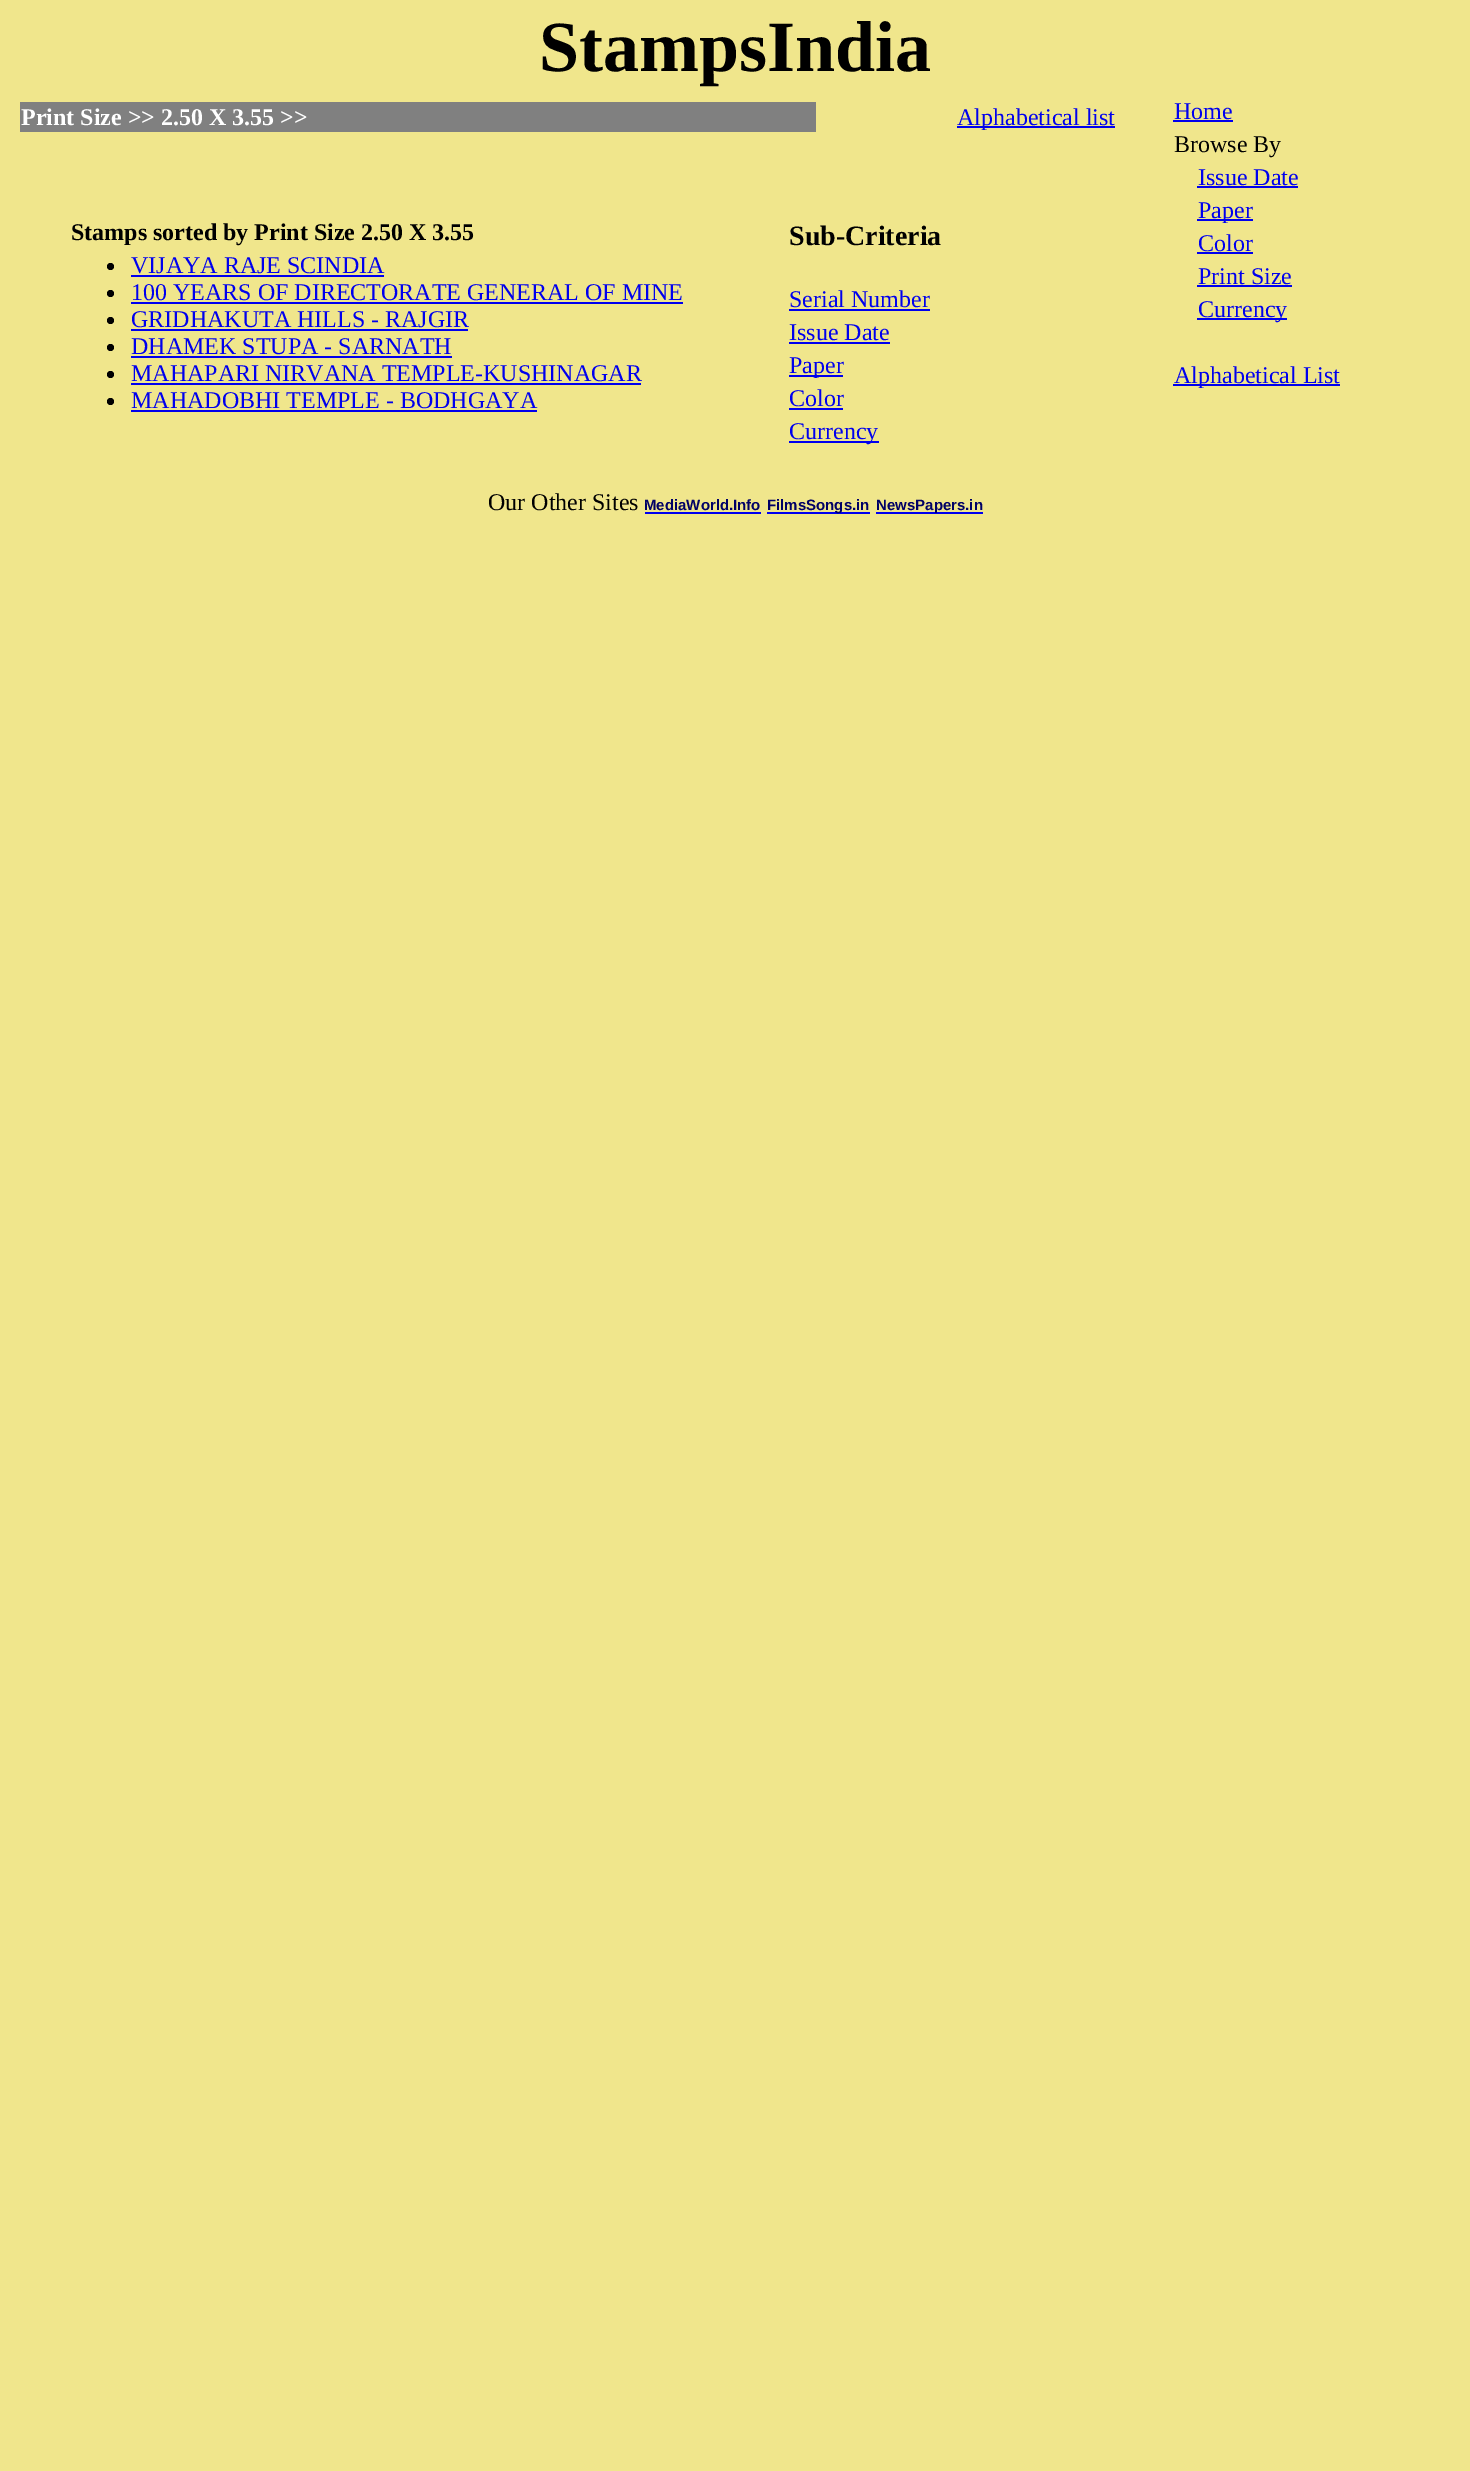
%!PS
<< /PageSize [1470 2471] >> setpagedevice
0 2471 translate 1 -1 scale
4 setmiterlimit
0.941 0.902 0.549 setrgbcolor
0 0 1470 2471 rectfill
/LiberationSerif-Bold [72 0 0 -72 0 0] selectfont
0 setgray
539 71 moveto (StampsIndia) show
0.502 setgray
20 102 796 30 rectfill
/LiberationSerif-Bold [24 0 0 -24 0 0] selectfont
1 setgray
21 125 moveto (Print Size >> 2.50 X 3.55 >>) show
0 0 0.933 setrgbcolor
957 126 158 2 rectfill
/LiberationSerif-Regular [24 0 0 -24 0 0] selectfont
957 125 moveto (Alphabetical list) show
/LiberationSerif-Bold [24 0 0 -24 0 0] selectfont
0 setgray
71 240 moveto (Stamps sorted by Print Size 2.50 X 3.55) show
newpath 110.5 266.5 3.5 0 360 arc closepath fill
/LiberationSerif-Regular [24 0 0 -24 0 0] selectfont
0 0 0.933 setrgbcolor
131 273 moveto (VIJAYA RAJE SCINDIA) show
131 275 253 2 rectfill
0 setgray
newpath 110.5 293.5 3.5 0 360 arc closepath fill
0 0 0.933 setrgbcolor
131 300 moveto (100 YEARS OF DIRECTORATE GENERAL OF MINE) show
131 302 552 2 rectfill
0 setgray
newpath 110.5 320.5 3.5 0 360 arc closepath fill
0 0 0.933 setrgbcolor
131 327 moveto (GRIDHAKUTA HILLS - RAJGIR) show
131 329 337 2 rectfill
0 setgray
newpath 110.5 347.5 3.5 0 360 arc closepath fill
0 0 0.933 setrgbcolor
131 354 moveto (DHAMEK STUPA - SARNATH) show
131 356 321 2 rectfill
0 setgray
newpath 110.5 374.5 3.5 0 360 arc closepath fill
0 0 0.933 setrgbcolor
131 381 moveto (MAHAPARI NIRVANA TEMPLE-KUSHINAGAR) show
131 383 510 2 rectfill
0 setgray
newpath 110.5 401.5 3.5 0 360 arc closepath fill
0 0 0.933 setrgbcolor
131 408 moveto (MAHADOBHI TEMPLE - BODHGAYA) show
131 410 406 2 rectfill
/LiberationSerif-Bold [28 0 0 -28 0 0] selectfont
0 setgray
789 245 moveto (Sub-Criteria) show
/LiberationSerif-Regular [24 0 0 -24 0 0] selectfont
0 0 0.933 setrgbcolor
789 307 moveto (Serial Number) show
789 309 141 2 rectfill
789 340 moveto (Issue Date) show
789 342 101 2 rectfill
789 375 54 2 rectfill
789 373 moveto (Paper) show
789 406 moveto (Color) show
789 408 54 2 rectfill
789 441 90 2 rectfill
789 439 moveto (Currency) show
1174 119 moveto (Home) show
1173 120 60 2 rectfill
0 setgray
1174 152 moveto (Browse By) show
0 0 0.933 setrgbcolor
1198 185 moveto (Issue Date) show
1197 186 101 2 rectfill
1197 219 56 2 rectfill
1198 218 moveto (Paper) show
1198 251 moveto (Color) show
1197 252 56 2 rectfill
1198 284 moveto (Print Size) show
1197 285 95 2 rectfill
1197 318 90 2 rectfill
1198 317 moveto (Currency) show
1173 384 167 2 rectfill
1174 383 moveto (Alphabetical List) show
0 setgray
488 510 moveto (Our Other Sites) show
/LiberationSans-Bold [15 0 0 -15 0 0] selectfont
0 0 0.4 setrgbcolor
644 510 moveto (MediaWorld.Info) show
0 0 0.933 setrgbcolor
645 512 116 2 rectfill
767 512 103 2 rectfill
0 0 0.4 setrgbcolor
767 510 moveto (FilmsSongs.in) show
0 0 0.933 setrgbcolor
876 512 107 2 rectfill
0 0 0.4 setrgbcolor
876 510 moveto (NewsPapers.in) show
showpage
